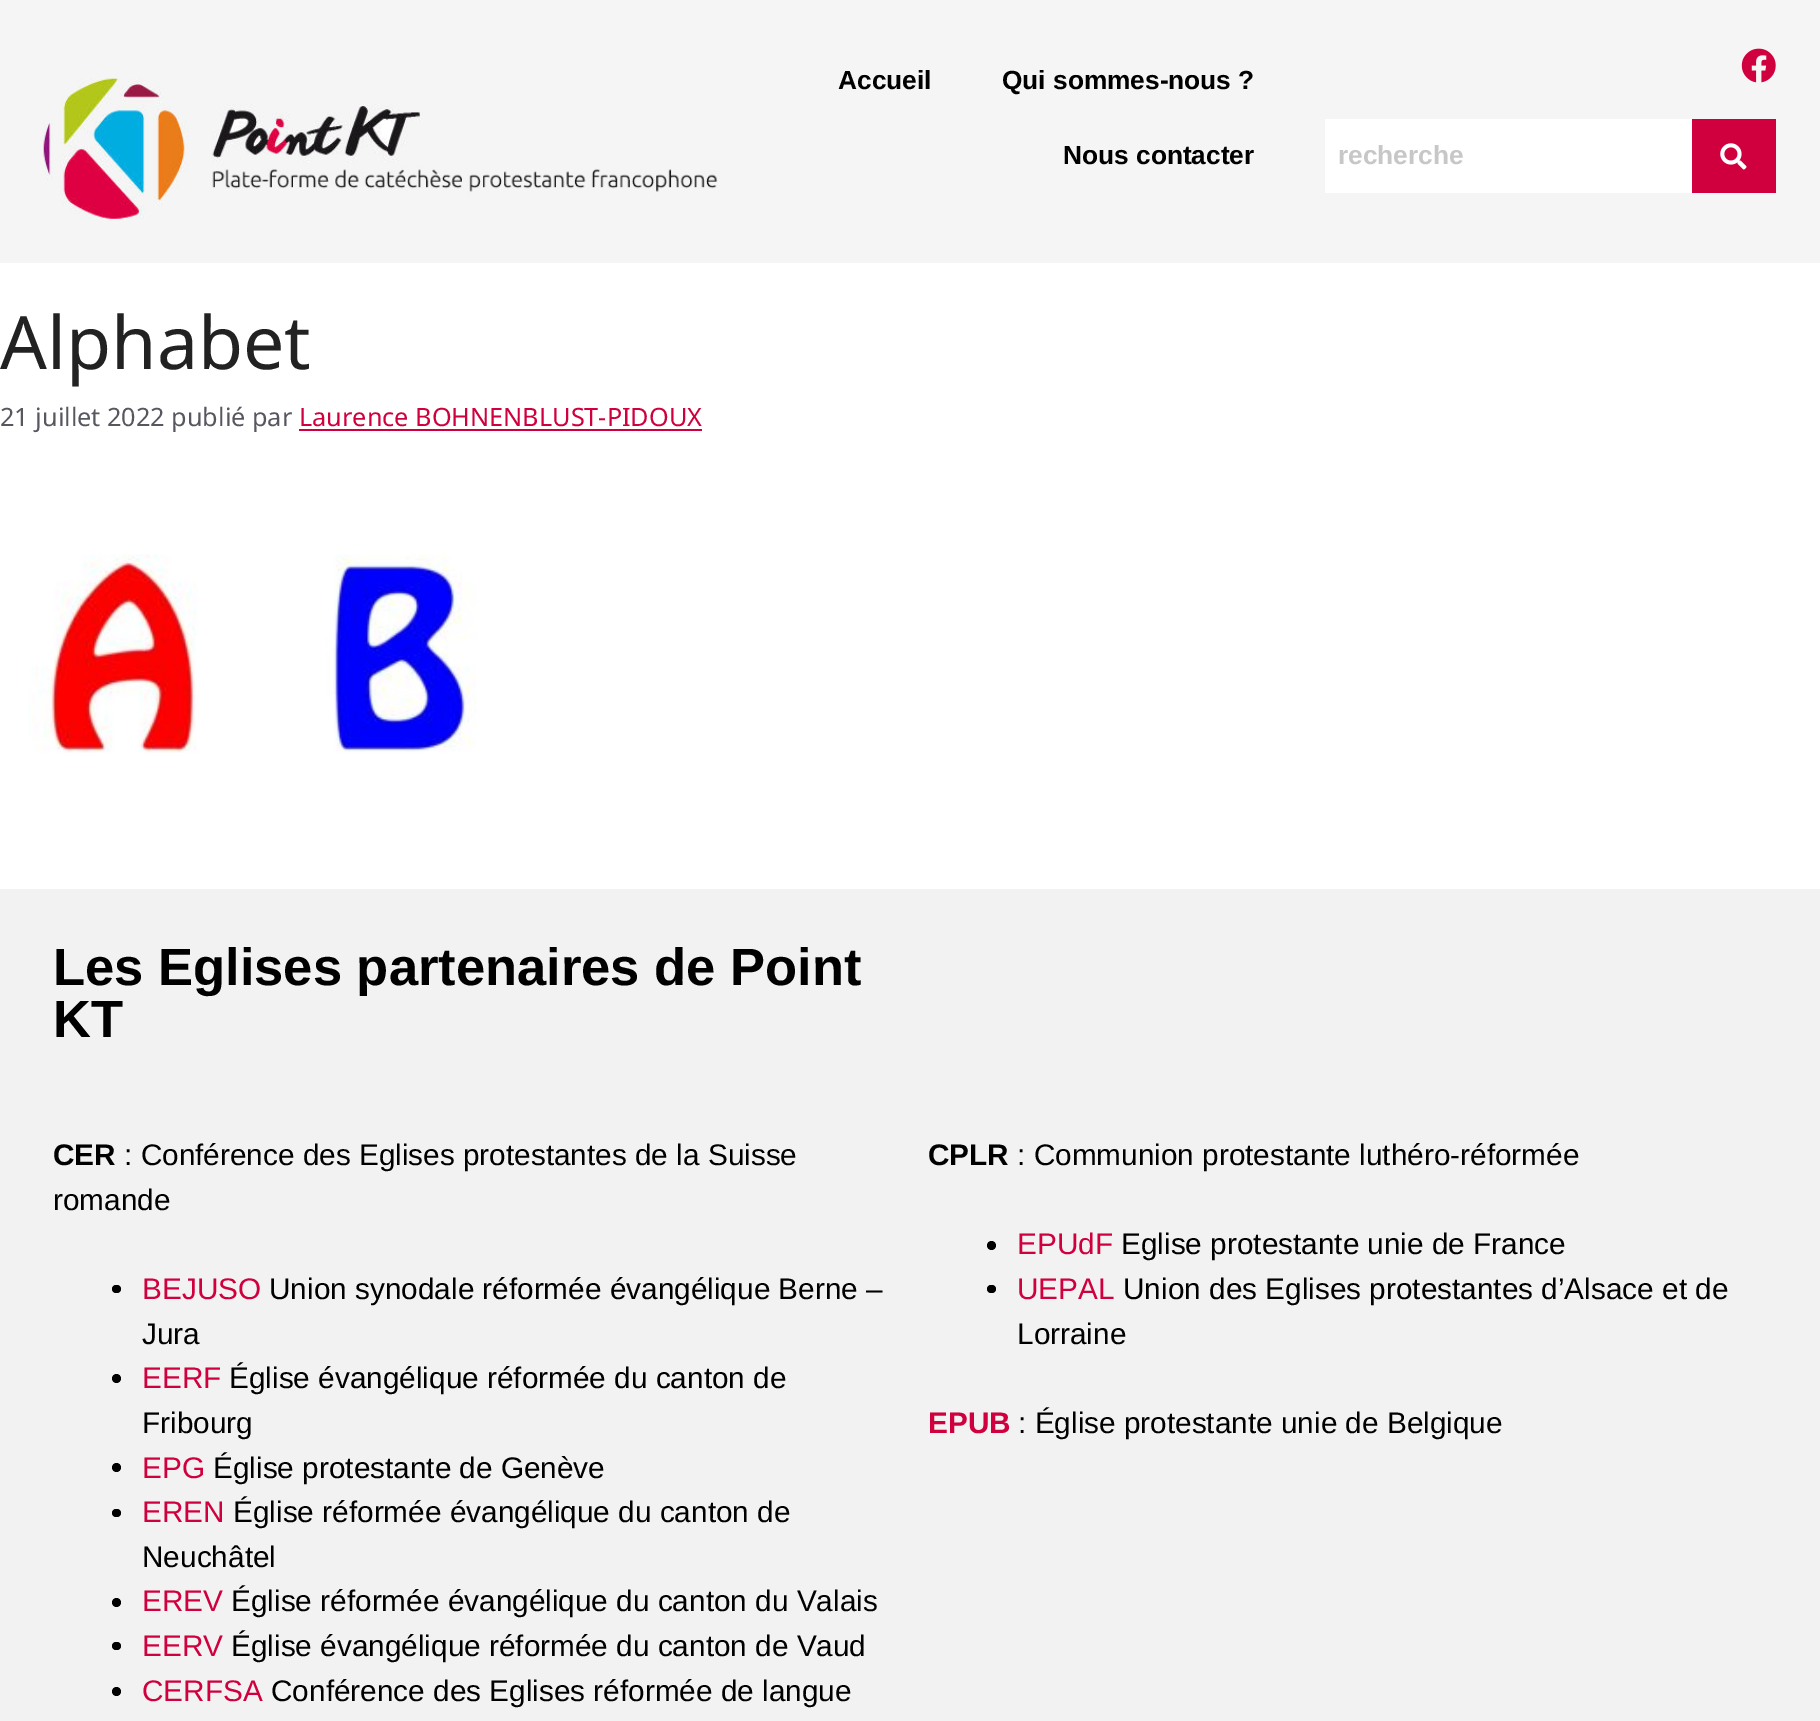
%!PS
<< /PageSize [1820 1721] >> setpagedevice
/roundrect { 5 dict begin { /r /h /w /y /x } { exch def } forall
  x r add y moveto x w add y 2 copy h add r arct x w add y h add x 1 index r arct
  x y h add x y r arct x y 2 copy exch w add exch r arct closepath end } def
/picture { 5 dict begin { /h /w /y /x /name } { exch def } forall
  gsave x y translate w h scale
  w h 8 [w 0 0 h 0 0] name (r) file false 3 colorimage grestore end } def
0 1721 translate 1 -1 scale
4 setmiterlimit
1 setgray
0 0 1820 1721 rectfill
0.961 setgray
0 0 1820 263 rectfill
(img1.rgb) 43 78 675 141 picture
/LiberationSans-Bold [26.25 0 0 -26.25 0 0] selectfont
0 setgray
838 89 moveto (Accueil) show
1002 89 moveto (Qui sommes-nous ?) show
1063 164 moveto (Nous contacter) show
(img2.rgb) 1741 48 35 35 picture
1 setgray
1325 119 367 74 rectfill
0.78 setgray
1338 164 moveto (recherche) show
0.816 0 0.243 setrgbcolor
1692 119 84 74 rectfill
(img3.rgb) 1720 143 27 27 picture
/NotoSans-Regular [73.5 0 0 -73.5 0 0] selectfont
0.133 setgray
0 369 moveto (Alphabet) show
/NotoSans-Regular [25.25 0 0 -25.25 0 0] selectfont
0.341 0.341 0.376 setrgbcolor
0 426 moveto (21 juillet 2022 publié par) show
0.816 0 0.243 setrgbcolor
299 426 moveto (Laurence BOHNENBLUST-PIDOUX) show
299 429 403 2 rectfill
(img4.rgb) 28 554 449 199 picture
0.949 setgray
0 889 1820 832 rectfill
/LiberationSans-Bold [52.5 0 0 -52.5 0 0] selectfont
0 setgray
53 985 moveto (Les Eglises partenaires de Point) show
53 1037 moveto (KT) show
/LiberationSans-Bold [29.75 0 0 -29.75 0 0] selectfont
53 1165 moveto (CER) show
/LiberationSans-Regular [29.75 0 0 -29.75 0 0] selectfont
124 1165 moveto (: Conférence des Eglises protestantes de la Suisse) show
53 1210 moveto (romande) show
112 1285 9 8 4 roundrect fill
0.816 0 0.243 setrgbcolor
142 1299 moveto (BEJUSO) show
0 setgray
269 1299 moveto (Union synodale réformée évangélique Berne –) show
142 1344 moveto (Jura) show
newpath 116.5 1378.5 4.5 0 360 arc closepath fill
0.816 0 0.243 setrgbcolor
142 1388 moveto (EERF) show
0 setgray
229 1388 moveto (Église évangélique réformée du canton de) show
142 1433 moveto (Fribourg) show
newpath 116.5 1467.5 4.5 0 360 arc closepath fill
0.816 0 0.243 setrgbcolor
142 1478 moveto (EPG) show
0 setgray
213 1478 moveto (Église protestante de Genève) show
112 1509 9 8 4 roundrect fill
0.816 0 0.243 setrgbcolor
142 1522 moveto (EREN) show
0 setgray
233 1522 moveto (Église réformée évangélique du canton de) show
142 1567 moveto (Neuchâtel) show
newpath 116.5 1602.5 4.5 0 360 arc closepath fill
0.816 0 0.243 setrgbcolor
142 1611 moveto (EREV) show
0 setgray
231 1611 moveto (Église réformée évangélique du canton du Valais) show
112 1642 9 8 4 roundrect fill
0.816 0 0.243 setrgbcolor
142 1656 moveto (EERV) show
0 setgray
231 1656 moveto (Église évangélique réformée du canton de Vaud) show
newpath 116.5 1691.5 4.5 0 360 arc closepath fill
0.816 0 0.243 setrgbcolor
142 1701 moveto (CERFSA) show
0 setgray
271 1701 moveto (Conférence des Eglises réformée de langue) show
/LiberationSans-Bold [29.75 0 0 -29.75 0 0] selectfont
928 1165 moveto (CPLR) show
/LiberationSans-Regular [29.75 0 0 -29.75 0 0] selectfont
1017 1165 moveto (: Communion protestante luthéro-réformée) show
newpath 991.5 1245.5 4.5 0 360 arc closepath fill
0.816 0 0.243 setrgbcolor
1017 1254 moveto (EPUdF) show
0 setgray
1121 1254 moveto (Eglise protestante unie de France) show
987 1285 9 8 4 roundrect fill
0.816 0 0.243 setrgbcolor
1017 1299 moveto (UEPAL) show
0 setgray
1123 1299 moveto (Union des Eglises protestantes d’Alsace et de) show
1017 1344 moveto (Lorraine) show
/LiberationSans-Bold [29.75 0 0 -29.75 0 0] selectfont
0.816 0 0.243 setrgbcolor
928 1433 moveto (EPUB) show
/LiberationSans-Regular [29.75 0 0 -29.75 0 0] selectfont
0 setgray
1018 1433 moveto (: Église protestante unie de Belgique) show
showpage
